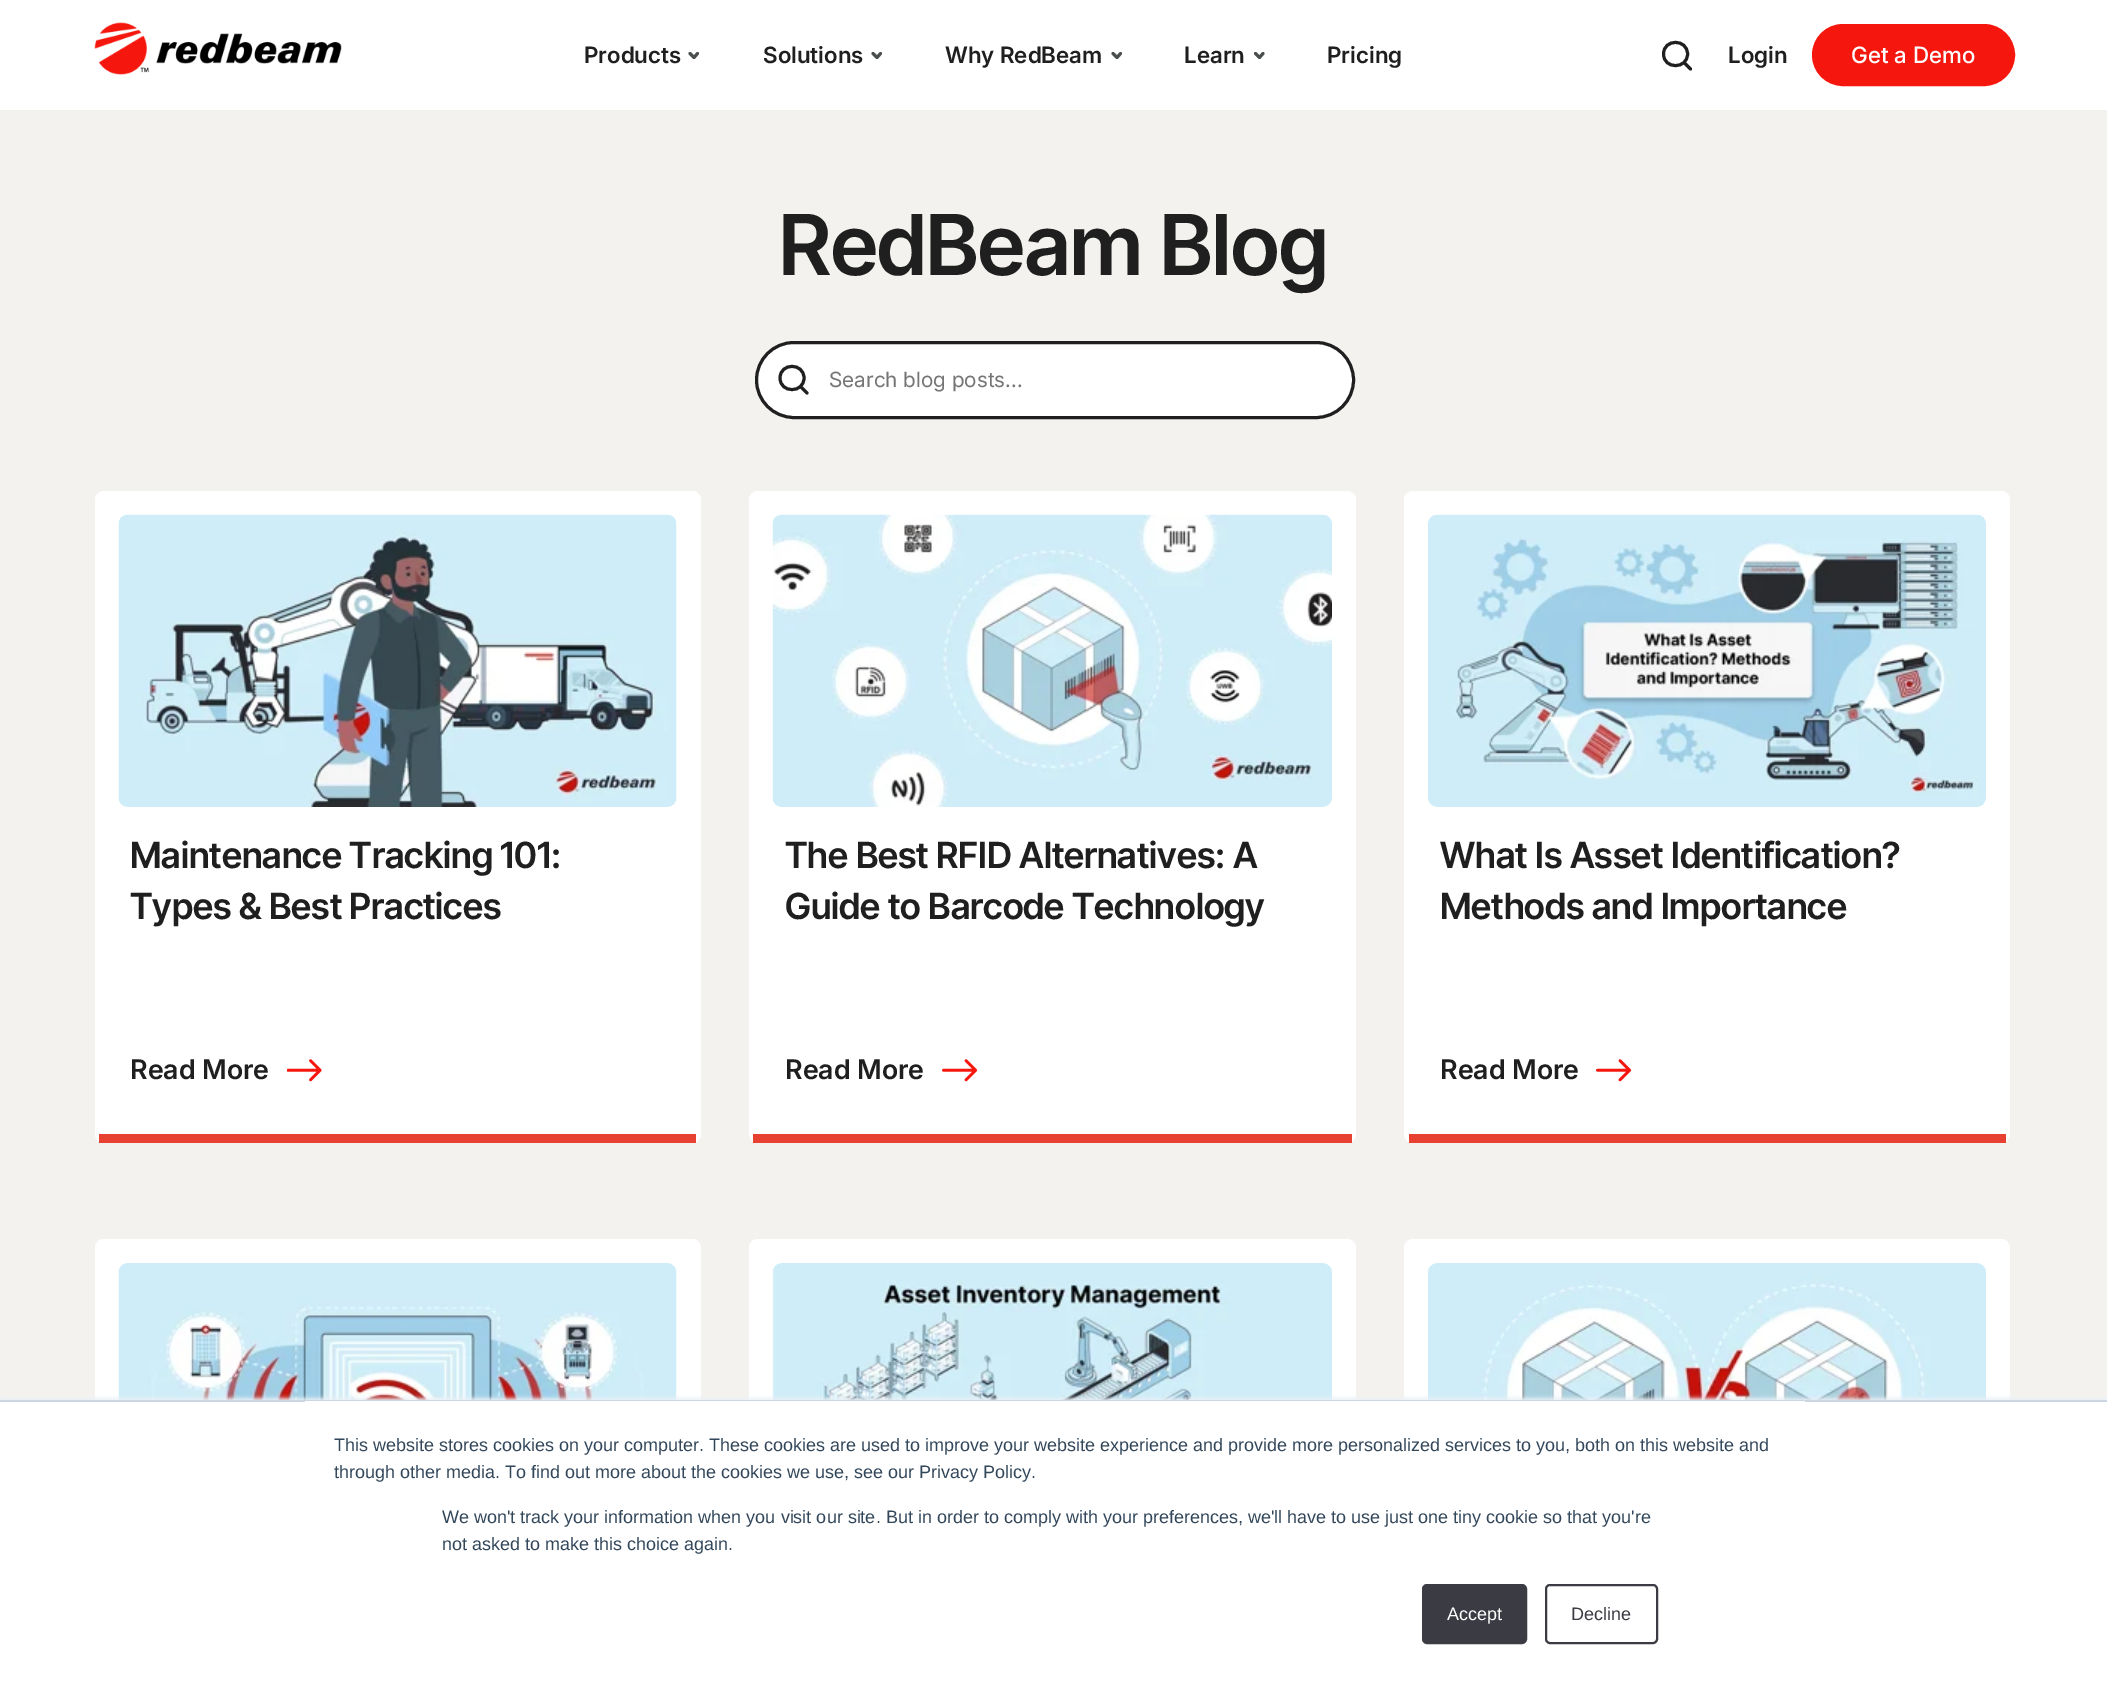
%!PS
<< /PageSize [2107 1683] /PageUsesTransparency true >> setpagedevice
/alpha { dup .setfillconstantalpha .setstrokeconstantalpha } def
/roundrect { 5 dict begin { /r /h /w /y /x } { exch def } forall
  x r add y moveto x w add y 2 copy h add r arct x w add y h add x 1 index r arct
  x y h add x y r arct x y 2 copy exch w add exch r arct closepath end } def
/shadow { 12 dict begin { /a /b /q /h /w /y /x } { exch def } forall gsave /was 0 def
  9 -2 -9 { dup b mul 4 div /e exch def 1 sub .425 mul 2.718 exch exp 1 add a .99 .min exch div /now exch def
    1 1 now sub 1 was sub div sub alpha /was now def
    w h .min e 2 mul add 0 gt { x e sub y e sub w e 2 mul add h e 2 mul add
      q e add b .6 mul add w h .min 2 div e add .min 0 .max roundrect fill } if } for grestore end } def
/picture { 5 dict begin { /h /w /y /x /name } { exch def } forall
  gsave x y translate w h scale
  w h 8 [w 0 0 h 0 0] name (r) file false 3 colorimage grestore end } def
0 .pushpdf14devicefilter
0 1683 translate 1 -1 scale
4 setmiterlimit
1 setgray
0 0 2107 1683 rectfill
(img1.rgb) 94 22 248 53 picture
/Inter-SemiBold [22.5 0 0 -22.5 0 0] selectfont
0.122 setgray
584 63 moveto (Products) show
0.29 0.306 0.31 setrgbcolor
3 setlinewidth
1 setlinecap
1 setlinejoin
newpath 690 53.5 moveto 694 57.5 lineto 697.5 53.5 lineto stroke
0.122 setgray
763 63 moveto (Solutions) show
0.29 0.306 0.31 setrgbcolor
newpath 873 53.5 moveto 877 57.5 lineto 880.5 53.5 lineto stroke
0.122 setgray
945 63 moveto (Why RedBeam) show
0.29 0.306 0.31 setrgbcolor
newpath 1113 53.5 moveto 1117 57.5 lineto 1120.5 53.5 lineto stroke
0.122 setgray
1184 63 moveto (Learn) show
0.29 0.306 0.31 setrgbcolor
newpath 1255.5 53.5 moveto 1259.5 57.5 lineto 1263 53.5 lineto stroke
0.122 setgray
1327 63 moveto (Pricing) show
newpath 1690.5 69 moveto 1684 62.5 lineto 1687.5 54 moveto 1687.5 69.5 1663.5 69.5 1663.5 54 curveto 1663.5 38.5 1687.5 38.5 1687.5 54 curveto closepath stroke
1728 63 moveto (Login) show
0.961 0.09 0.055 setrgbcolor
1813.5 25.5 200 59 29.5 roundrect gsave fill grestore
0 setlinecap
0 setlinejoin
stroke
/Inter-Medium [22.5 0 0 -22.5 0 0] selectfont
1 setgray
1851 63 moveto (Get a Demo) show
0.957 0.949 0.933 setrgbcolor
0 110 2107 1290 rectfill
/InterTight-SemiBold [84 0 0 -84 0 0] selectfont
0.122 setgray
779 275 moveto (RedBeam Blog) show
1 setgray
756.5 342.5 597 75 37.5 roundrect gsave fill grestore
0.122 setgray
stroke
1 setlinecap
1 setlinejoin
newpath 807 393 moveto 800.5 386.5 lineto 804 378 moveto 804 393.5 780 393.5 780 378 curveto 780 362.5 804 362.5 804 378 curveto closepath stroke
/Inter-Regular [21 0 0 -21 0 0] selectfont
0.459 setgray
829 387 moveto (Search blog posts...) show
1 setgray
95 491 606 652 9 roundrect fill
0.906 0.255 0.196 setrgbcolor
99 1134 597 9 rectfill
(img2.rgb) 118 514 559 293 picture
/InterTight-SemiBold [36 0 0 -36 0 0] selectfont
0.122 setgray
130 868 moveto (Maintenance Tracking 101:) show
130 919 moveto (Types & Best Practices) show
/Inter-SemiBold [27 0 0 -27 0 0] selectfont
130 1079 moveto (Read More) show
(img3.rgb) 287 1059 35 23 picture
1 setgray
749 491 607 652 9 roundrect fill
0.906 0.255 0.196 setrgbcolor
753 1134 599 9 rectfill
(img4.rgb) 772 514 560 293 picture
/InterTight-SemiBold [36 0 0 -36 0 0] selectfont
0.122 setgray
785 868 moveto (The Best RFID Alternatives: A) show
785 919 moveto (Guide to Barcode Technology) show
/Inter-SemiBold [27 0 0 -27 0 0] selectfont
785 1079 moveto (Read More) show
(img5.rgb) 942 1059 36 23 picture
1 setgray
1404 491 606 652 9 roundrect fill
0.906 0.255 0.196 setrgbcolor
1409 1134 597 9 rectfill
(img6.rgb) 1428 514 558 293 picture
/InterTight-SemiBold [36 0 0 -36 0 0] selectfont
0.122 setgray
1440 868 moveto (What Is Asset Identification?) show
1440 919 moveto (Methods and Importance) show
/Inter-SemiBold [27 0 0 -27 0 0] selectfont
1440 1079 moveto (Read More) show
(img5.rgb) 1596 1059 36 23 picture
1 setgray
95 1239 606 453 9 roundrect fill
(img7.rgb) 118 1263 559 137 picture
749 1239 607 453 9 roundrect fill
(img8.rgb) 772 1263 560 137 picture
1404 1239 606 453 9 roundrect fill
(img9.rgb) 1428 1263 558 137 picture
0.918 0.941 0.965 setrgbcolor
0 1398 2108 284 0 2 1 shadow
1 setgray
0 1402 2107 281 rectfill
0.796 0.839 0.886 setrgbcolor
0 1400 2107 2 rectfill
1 setgray
305 1401 1500 1 rectfill
/LiberationSans-Regular [18 0 0 -18 0 0] selectfont
0.2 0.278 0.357 setrgbcolor
334 1451 moveto (This website stores cookies on your computer. These cookies are used to improve your website experience and provide more personalized services to you, both on this website and) show
334 1478 moveto (through other media. To find out more about the cookies we use, see our Privacy Policy.) show
442 1523 moveto (We won't track your information when you visit our site. But in order to comply with your preferences, we'll have to use just one tiny cookie so that you're) show
442 1550 moveto (not asked to make this choice again.) show
0.227 0.231 0.263 setrgbcolor
1423 1585 103 58 4 roundrect gsave fill grestore
2 setlinewidth
0 setlinecap
0 setlinejoin
stroke
1 setgray
1447 1620 moveto (Accept) show
0.227 0.231 0.263 setrgbcolor
1546 1585 111 58 4 roundrect stroke
1571 1620 moveto (Decline) show
.poppdf14devicefilter showpage
